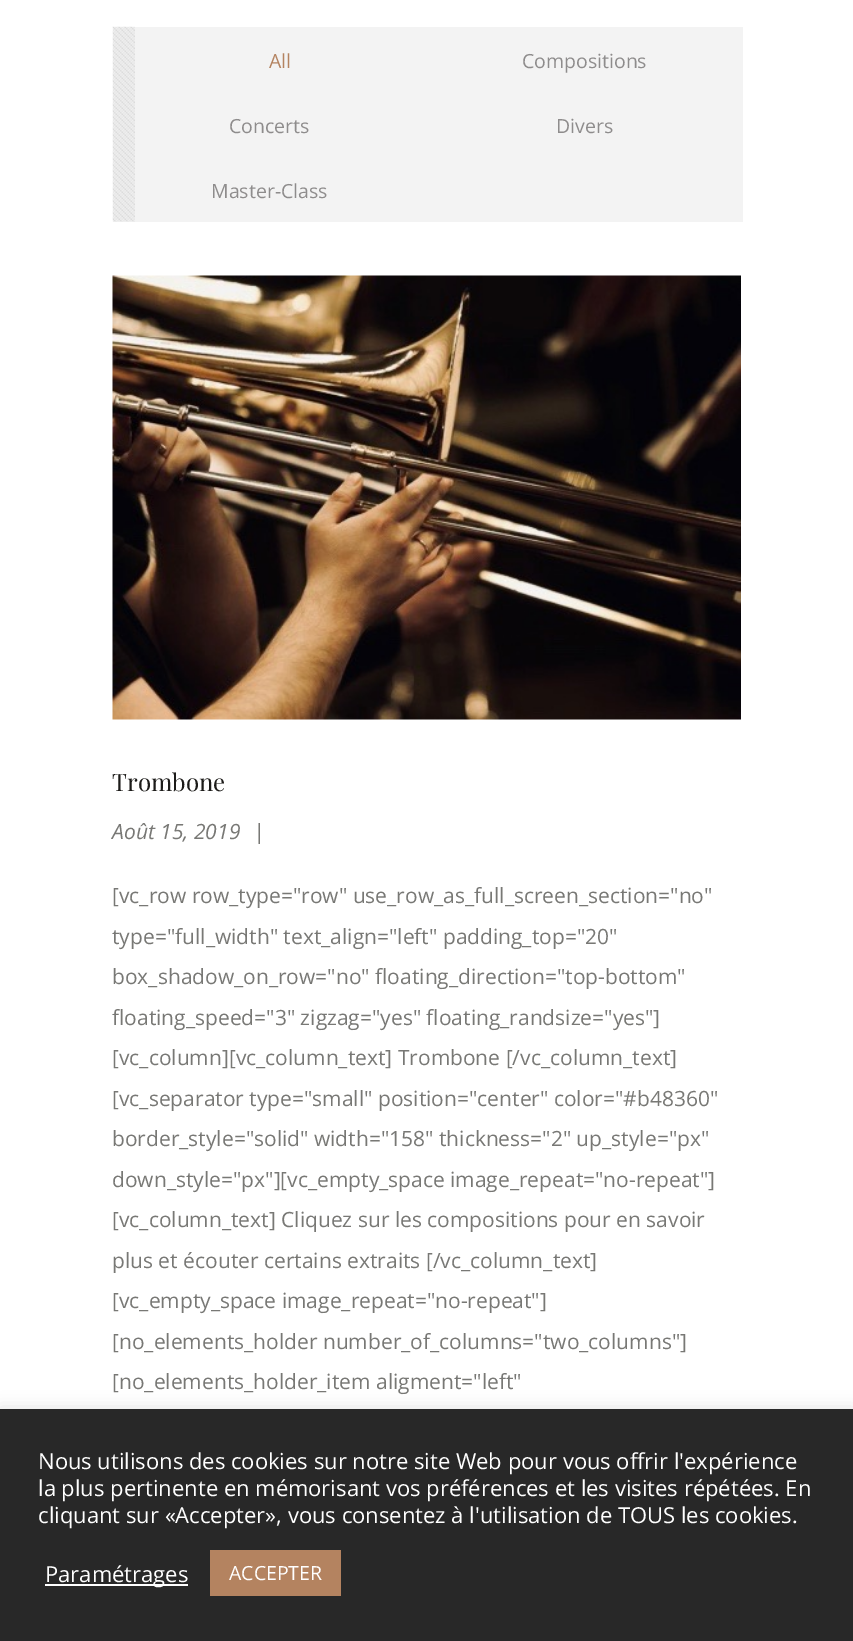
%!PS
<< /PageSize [853 1641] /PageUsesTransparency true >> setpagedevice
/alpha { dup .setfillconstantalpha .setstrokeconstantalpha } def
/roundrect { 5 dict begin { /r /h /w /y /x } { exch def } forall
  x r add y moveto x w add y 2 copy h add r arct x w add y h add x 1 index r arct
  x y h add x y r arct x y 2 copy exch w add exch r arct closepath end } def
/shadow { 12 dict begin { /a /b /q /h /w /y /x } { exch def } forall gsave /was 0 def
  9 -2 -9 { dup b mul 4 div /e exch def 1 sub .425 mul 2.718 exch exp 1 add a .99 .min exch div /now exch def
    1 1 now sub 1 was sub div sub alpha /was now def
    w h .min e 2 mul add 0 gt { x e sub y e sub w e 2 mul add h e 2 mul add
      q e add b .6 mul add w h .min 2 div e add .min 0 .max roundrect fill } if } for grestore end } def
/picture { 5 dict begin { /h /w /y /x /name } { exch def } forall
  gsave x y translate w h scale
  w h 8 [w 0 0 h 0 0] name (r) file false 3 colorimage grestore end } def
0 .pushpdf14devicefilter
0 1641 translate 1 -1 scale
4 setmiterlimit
1 setgray
0 0 853 1641 rectfill
0.953 setgray
113 27 630 195 rectfill
(img1.rgb) 112 26 23 196 picture
/OpenSans-Regular [19.5 0 0 -19.5 0 0] selectfont
0.706 0.514 0.376 setrgbcolor
269 68 moveto (All) show
0.557 0.549 0.549 setrgbcolor
522 68 moveto (Compositions) show
229 133 moveto (Concerts) show
556 133 moveto (Divers) show
211 198 moveto (Master-Class) show
(img2.rgb) 112 275 629 445 picture
/PlayfairDisplay-Regular [24 0 0 -24 0 0] selectfont
0.11 0.106 0.098 setrgbcolor
112 791 moveto (Trombone) show
/OpenSans-Italic [21 0 0 -21 0 0] selectfont
0.471 0.471 0.459 setrgbcolor
112 839 moveto (Août 15, 2019) show
253 839 moveto (|) show
/OpenSans-Regular [21 0 0 -21 0 0] selectfont
112 903 moveto ([vc_row row_type="row" use_row_as_full_screen_section="no") show
112 944 moveto (type="full_width" text_align="left" padding_top="20") show
112 984 moveto (box_shadow_on_row="no" floating_direction="top-bottom") show
112 1025 moveto (floating_speed="3" zigzag="yes" floating_randsize="yes"]) show
112 1065 moveto ([vc_column][vc_column_text] Trombone [/vc_column_text]) show
112 1106 moveto ([vc_separator type="small" position="center" color="#b48360") show
112 1146 moveto (border_style="solid" width="158" thickness="2" up_style="px") show
112 1187 moveto (down_style="px"][vc_empty_space image_repeat="no-repeat"]) show
112 1227 moveto ([vc_column_text] Cliquez sur les compositions pour en savoir) show
112 1268 moveto (plus et écouter certains extraits [/vc_column_text]) show
112 1308 moveto ([vc_empty_space image_repeat="no-repeat"]) show
112 1349 moveto ([no_elements_holder number_of_columns="two_columns"]) show
112 1389 moveto ([no_elements_holder_item aligment="left") show
0.675 0.671 0.671 setrgbcolor
0 1407 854 233 0 7.5 0.3 shadow
0.157 setgray
0 1409 853 232 rectfill
/OpenSans-Regular [22 0 0 -22 0 0] selectfont
1 setgray
38 1469 moveto (Nous utilisons des cookies sur notre site Web pour vous offrir l'expérience) show
38 1496 moveto (la plus pertinente en mémorisant vos préférences et les visites répétées. En) show
38 1523 moveto (cliquant sur «Accepter», vous consentez à l'utilisation de TOUS les cookies.) show
45 1584 143 2 rectfill
45 1582 moveto (Paramétrages) show
0.706 0.514 0.376 setrgbcolor
210 1550 131 46 rectfill
/OpenSans-Regular [19.5 0 0 -19.5 0 0] selectfont
1 setgray
229 1580 moveto (ACCEPTER) show
.poppdf14devicefilter showpage
